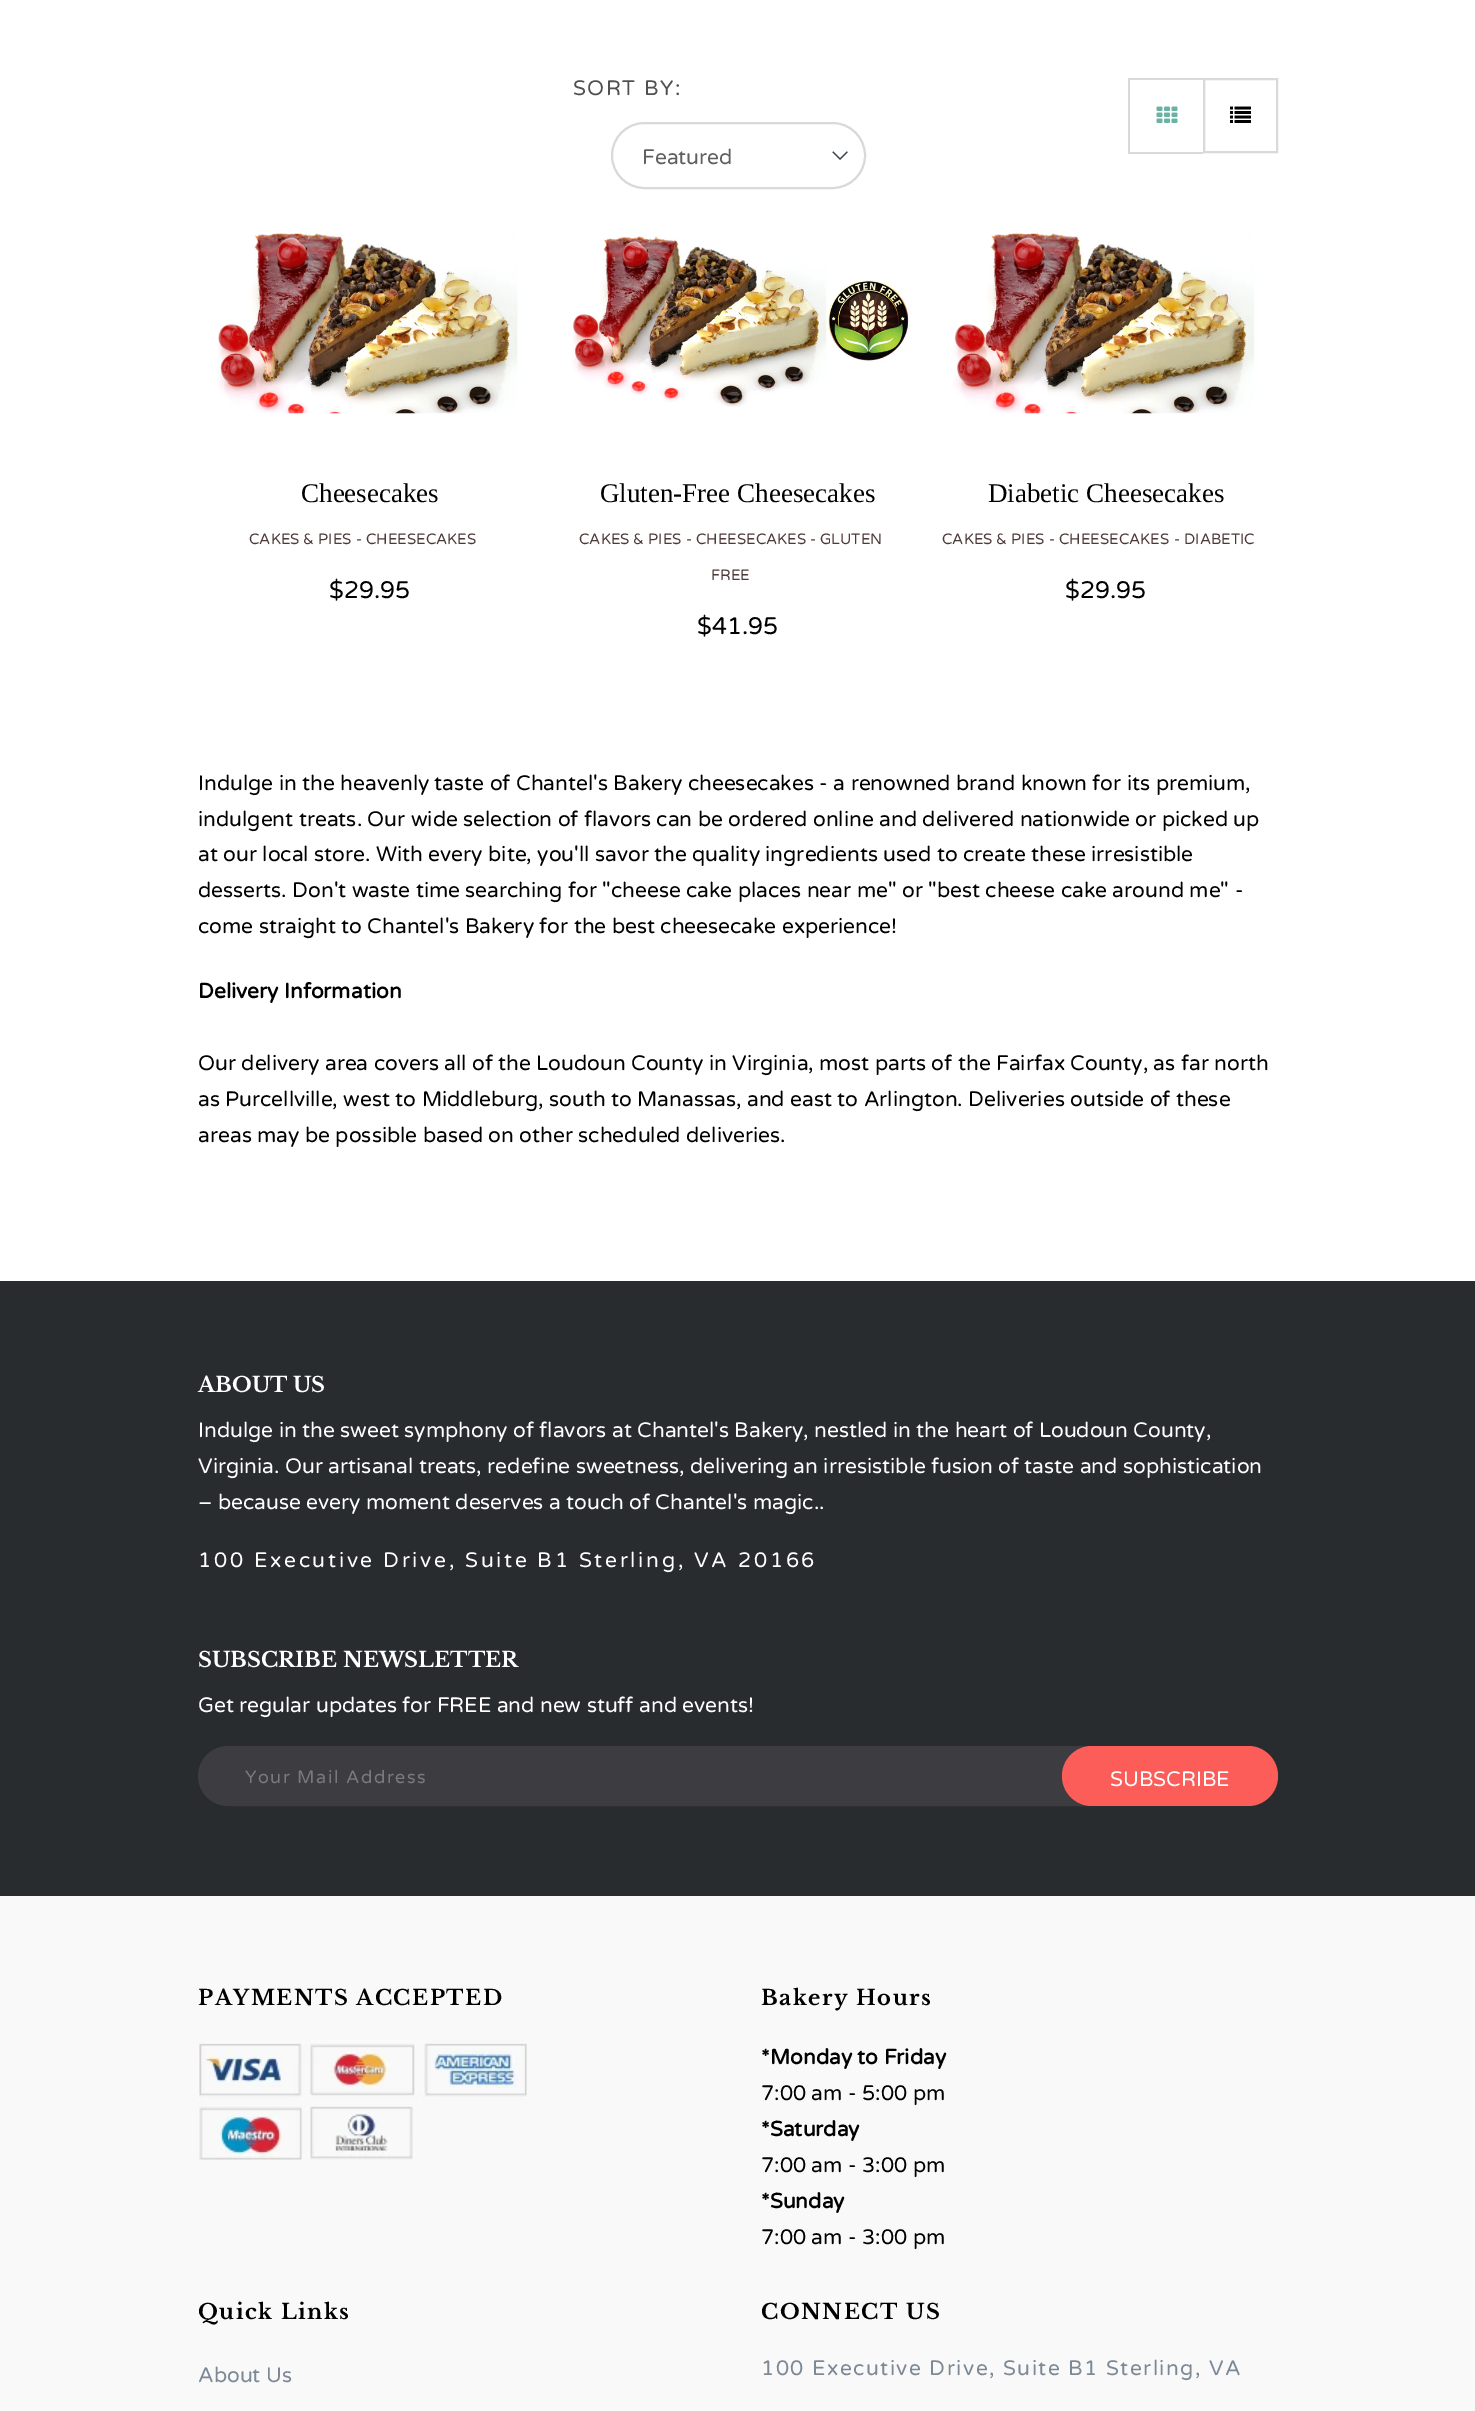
%!PS
<< /PageSize [1475 2411] >> setpagedevice
/roundrect { 5 dict begin { /r /h /w /y /x } { exch def } forall
  x r add y moveto x w add y 2 copy h add r arct x w add y h add x 1 index r arct
  x y h add x y r arct x y 2 copy exch w add exch r arct closepath end } def
/picture { 5 dict begin { /h /w /y /x /name } { exch def } forall
  gsave x y translate w h scale
  w h 8 [w 0 0 h 0 0] name (r) file false 3 colorimage grestore end } def
0 2411 translate 1 -1 scale
4 setmiterlimit
1 setgray
0 0 1475 2411 rectfill
/VarelaRound-Regular [21 0 0 -21 0 0] selectfont
0.314 setgray
573 95 moveto 1.5 0 (SORT BY:) ashow
(img1.rgb) 832 151 16 9 picture
0.851 setgray
2 setlinewidth
612 123 253 65 32.5 roundrect stroke
0.376 setgray
642 164 moveto (Featured) show
0.851 setgray
1128 78 75 2 rectfill
1128 152 75 2 rectfill
1128 78 2 75 rectfill
(img2.rgb) 1156 106 22 17 picture
1204 79 73 73 rectstroke
(img3.rgb) 1230 106 21 17 picture
(img4.rgb) 217 233 301 181 picture
/LiberationSerif-Regular [27 0 0 -27 0 0] selectfont
0 setgray
301 502 moveto (Cheesecakes) show
/VarelaRound-Regular [15 0 0 -15 0 0] selectfont
0.306 0.224 0.224 setrgbcolor
249 544 moveto (CAKES & PIES) show
356 544 moveto (- CHEESECAKES) show
/VarelaRound-Regular [24 0 0 -24 0 0] selectfont
0 setgray
329 598 moveto ($29.95) show
(img5.rgb) 572 235 338 172 picture
/LiberationSerif-Regular [27 0 0 -27 0 0] selectfont
600 502 moveto (Gluten-Free Cheesecakes) show
/VarelaRound-Regular [15 0 0 -15 0 0] selectfont
0.306 0.224 0.224 setrgbcolor
579 544 moveto (CAKES & PIES) show
686 544 moveto (- CHEESECAKES) show
810 544 moveto (- GLUTEN) show
711 580 moveto (FREE) show
/VarelaRound-Regular [24 0 0 -24 0 0] selectfont
0 setgray
697 634 moveto ($41.95) show
(img6.rgb) 953 233 302 181 picture
/LiberationSerif-Regular [27 0 0 -27 0 0] selectfont
988 502 moveto (Diabetic Cheesecakes) show
/VarelaRound-Regular [15 0 0 -15 0 0] selectfont
0.306 0.224 0.224 setrgbcolor
942 544 moveto (CAKES & PIES) show
1049 544 moveto (- CHEESECAKES) show
1174 544 moveto (- DIABETIC) show
/VarelaRound-Regular [24 0 0 -24 0 0] selectfont
0 setgray
1065 598 moveto ($29.95) show
/VarelaRound-Regular [21 0 0 -21 0 0] selectfont
198 790 moveto (Indulge in the heavenly taste of Chantel's Bakery cheesecakes - a renowned brand known for its premium,) show
198 826 moveto (indulgent treats. Our wide selection of flavors can be ordered online and delivered nationwide or picked up) show
198 861 moveto (at our local store. With every bite, you'll savor the quality ingredients used to create these irresistible) show
198 897 moveto (desserts. Don't waste time searching for "cheese cake places near me" or "best cheese cake around me" -) show
198 933 moveto (come straight to Chantel's Bakery for the best cheesecake experience!) show
/VarelaRound-Bold [21 0 0 -21 0 0] selectfont
198 998 moveto (Delivery Information) show
/VarelaRound-Regular [21 0 0 -21 0 0] selectfont
198 1070 moveto (Our delivery area covers all of the Loudoun County in Virginia, most parts of the Fairfax County, as far north) show
198 1106 moveto (as Purcellville, west to Middleburg, south to Manassas, and east to Arlington. Deliveries outside of these) show
198 1142 moveto (areas may be possible based on other scheduled deliveries.) show
0.157 0.173 0.184 setrgbcolor
0 1281 1475 615 rectfill
/LibreBaskerville-Bold [21 0 0 -21 0 0] selectfont
1 setgray
198 1392 moveto (ABOUT US) show
/VarelaRound-Regular [21 0 0 -21 0 0] selectfont
198 1437 moveto (Indulge in the sweet symphony of flavors at Chantel's Bakery, nestled in the heart of Loudoun County,) show
198 1473 moveto (Virginia. Our artisanal treats, redefine sweetness, delivering an irresistible fusion of taste and sophistication) show
198 1509 moveto (– because every moment deserves a touch of Chantel's magic..) show
198 1567 moveto 2.7 0 (100 Executive Drive, Suite B1 Sterling, VA 20166) ashow
/LibreBaskerville-Bold [21 0 0 -21 0 0] selectfont
198 1667 moveto (SUBSCRIBE NEWSLETTER) show
/VarelaRound-Regular [21 0 0 -21 0 0] selectfont
198 1712 moveto (Get regular updates for FREE and new stuff and events!) show
0.239 0.235 0.255 setrgbcolor
199 1747 1078 58 29 roundrect gsave fill grestore
stroke
/VarelaRound-Regular [18 0 0 -18 0 0] selectfont
0.478 0.475 0.486 setrgbcolor
245 1783 moveto 1.5 0 (Your Mail Address) ashow
0.988 0.365 0.349 setrgbcolor
1062 1746 216 60 30 roundrect fill
/VarelaRound-Regular [21 0 0 -21 0 0] selectfont
1 setgray
1110 1786 moveto (SUBSCRIBE) show
0.976 setgray
0 1896 1475 515 rectfill
/LibreBaskerville-Bold [21 0 0 -21 0 0] selectfont
0 setgray
198 2005 moveto 1.5 0 (PAYMENTS ACCEPTED) ashow
(img7.rgb) 198 2040 329 120 picture
761 2005 moveto 1.5 0 (Bakery Hours) ashow
/VarelaRound-Bold [21 0 0 -21 0 0] selectfont
761 2064 moveto (*Monday to Friday) show
/VarelaRound-Regular [21 0 0 -21 0 0] selectfont
761 2100 moveto (7:00 am - 5:00 pm) show
/VarelaRound-Bold [21 0 0 -21 0 0] selectfont
761 2136 moveto (*Saturday) show
/VarelaRound-Regular [21 0 0 -21 0 0] selectfont
761 2172 moveto (7:00 am - 3:00 pm) show
/VarelaRound-Bold [21 0 0 -21 0 0] selectfont
761 2208 moveto (*Sunday) show
/VarelaRound-Regular [21 0 0 -21 0 0] selectfont
761 2244 moveto (7:00 am - 3:00 pm) show
/LibreBaskerville-Bold [21 0 0 -21 0 0] selectfont
198 2319 moveto 1.5 0 (Quick Links) ashow
/VarelaRound-Regular [21 0 0 -21 0 0] selectfont
0.49 0.537 0.592 setrgbcolor
198 2382 moveto (About Us) show
/LibreBaskerville-Bold [21 0 0 -21 0 0] selectfont
0 setgray
761 2319 moveto 1.5 0 (CONNECT US) ashow
/VarelaRound-Regular [21 0 0 -21 0 0] selectfont
0.49 0.537 0.592 setrgbcolor
761 2375 moveto 1.5 0 (100 Executive Drive, Suite B1 Sterling, VA) ashow
showpage
